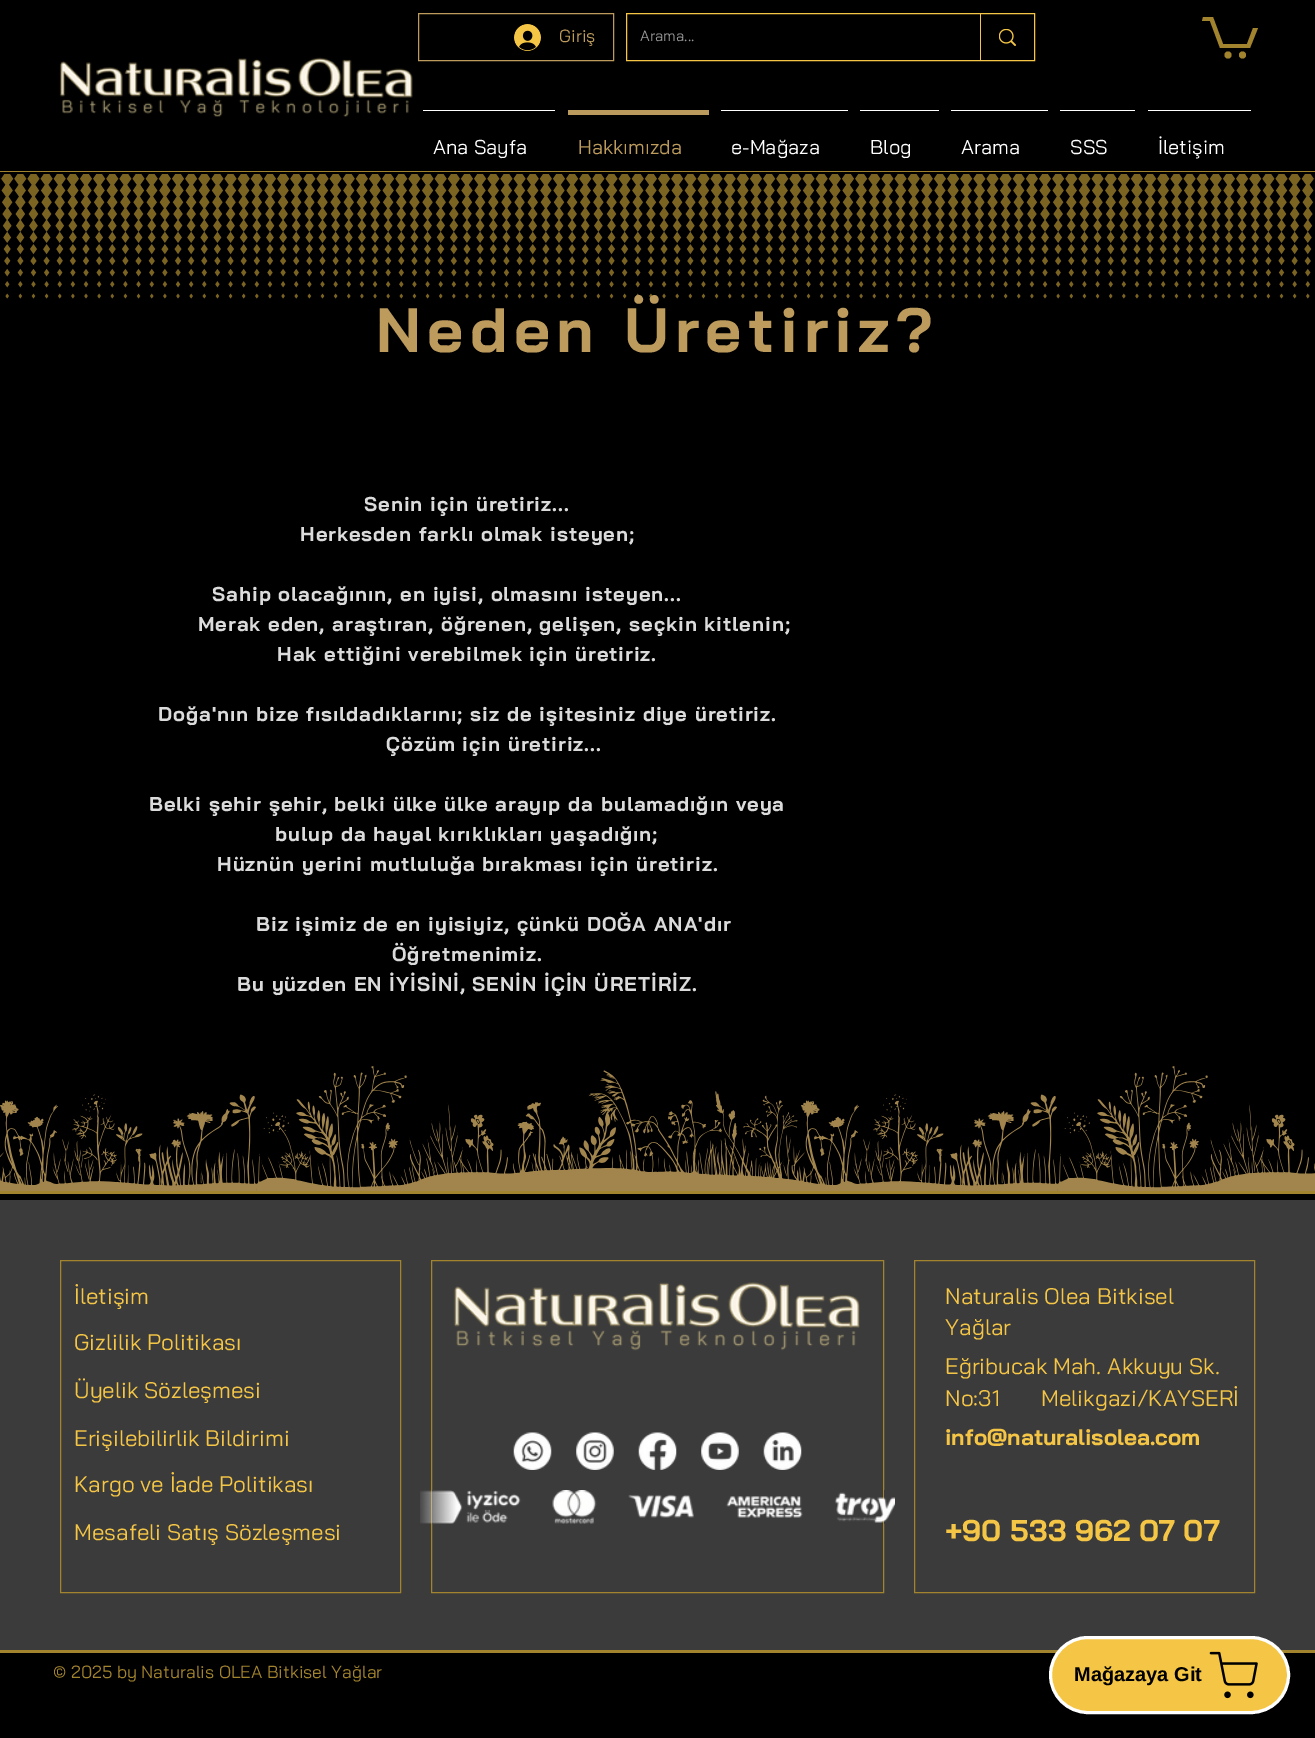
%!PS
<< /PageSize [1315 1738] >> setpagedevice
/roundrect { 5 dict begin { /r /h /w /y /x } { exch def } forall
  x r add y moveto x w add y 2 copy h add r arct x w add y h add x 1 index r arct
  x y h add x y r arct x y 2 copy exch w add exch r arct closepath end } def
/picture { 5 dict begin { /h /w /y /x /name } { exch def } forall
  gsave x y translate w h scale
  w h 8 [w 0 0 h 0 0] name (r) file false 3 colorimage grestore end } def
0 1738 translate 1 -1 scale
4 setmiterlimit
0 setgray
0 0 1315 1738 rectfill
(img1.rgb) 59 57 354 60 picture
0.737 0.608 0.365 setrgbcolor
418.5 13.5 195 47 rectstroke
(img2.rgb) 514 24 27 27 picture
/BaiJamjuree-Regular [17.5 0 0 -17.5 0 0] selectfont
559 42 moveto (Giriş) show
0.961 0.776 0.271 setrgbcolor
626.5 13.5 408 47 rectstroke
/BaiJamjuree-Regular [15 0 0 -15 0 0] selectfont
0.6 setgray
640 41 moveto (Arama...) show
0.961 0.776 0.271 setrgbcolor
980 14 1 46 rectfill
(img3.rgb) 999 29 17 17 picture
0.639 0.518 0.18 setrgbcolor
newpath 1258 28 moveto 1250 48 lineto 1220 48 lineto 1210 21 lineto 1202 21 lineto 1203 17 lineto 1213 17 lineto 1223 44 lineto 1247 44 lineto 1253 28 lineto fill
newpath 1242.5 55 3.5 0 360 arc closepath fill
newpath 1228 55 3.5 0 360 arc closepath fill
1 setgray
423 110 132 1 rectfill
/BaiJamjuree-Regular [20 0 0 -20 0 0] selectfont
433 154 moveto (Ana Sayfa) show
0.733 0.604 0.365 setrgbcolor
568 110 141 5 rectfill
0.737 0.608 0.365 setrgbcolor
578 154 moveto (Hakkımızda) show
1 setgray
721 110 127 1 rectfill
731 154 moveto (e-Mağaza) show
860 110 79 1 rectfill
870 154 moveto (Blog) show
951 110 97 1 rectfill
961 154 moveto (Arama) show
1060 110 75 1 rectfill
1070 154 moveto (SSS) show
1148 110 103 1 rectfill
1158 154 moveto (İletişim) show
0.639 0.518 0.18 setrgbcolor
0 171 1315 1 rectfill
(img4.rgb) 0 174 1315 125 picture
/BaiJamjuree-Bold [62.5 0 0 -62.5 0 0] selectfont
0.737 0.608 0.365 setrgbcolor
376 352 moveto 6.25 0 (Neden Üretiriz?) ashow
/BaiJamjuree-Bold [20 0 0 -20 0 0] selectfont
0.859 setgray
364 511 moveto 1 0 (Senin için üretiriz...) ashow
300 541 moveto 1 0 (Herkesden farklı olmak isteyen;) ashow
212 601 moveto 1 0 (Sahip olacağının, en iyisi, olmasını isteyen...) ashow
198 631 moveto 1 0 (Merak eden, araştıran, öğrenen, gelişen, seçkin kitlenin;) ashow
277 661 moveto 1 0 (Hak ettiğini verebilmek için üretiriz.) ashow
158 721 moveto 1 0 (Doğa'nın bize fısıldadıklarını; siz de işitesiniz diye üretiriz.) ashow
386 751 moveto 1 0 (Çözüm için üretiriz...) ashow
149 811 moveto 1 0 (Belki şehir şehir, belki ülke ülke arayıp da bulamadığın veya) ashow
275 841 moveto 1 0 (bulup da hayal kırıklıkları yaşadığın;) ashow
217 871 moveto 1 0 (Hüznün yerini mutluluğa bırakması için üretiriz.) ashow
256 931 moveto 1 0 (Biz işimiz de en iyisiyiz, çünkü DOĞA ANA'dır) ashow
392 961 moveto 1 0 (Öğretmenimiz.) ashow
237 991 moveto 1 0 (Bu yüzden EN İYİSİNİ, SENİN İÇİN ÜRETİRİZ.) ashow
(img5.rgb) 0 1066 1315 125 picture
0.639 0.518 0.18 setrgbcolor
0 1650 1315 3 rectfill
0.231 setgray
0 1200 1315 450 rectfill
0.961 0.776 0.271 setrgbcolor
1050.5 1637.5 238 75 37.5 roundrect gsave fill grestore
1 setgray
3 setlinewidth
stroke
/LiberationSans-Bold [20 0 0 -20 0 0] selectfont
0 setgray
1074 1681 moveto (Mağazaya Git) show
(img6.rgb) 1209 1651 49 48 picture
0.639 0.518 0.18 setrgbcolor
0 1191 1315 3 rectfill
1 setlinewidth
60.5 1260.5 340 332 rectstroke
/BaiJamjuree-Regular [22.5 0 0 -22.5 0 0] selectfont
0.961 0.776 0.271 setrgbcolor
74 1304 moveto (İletişim) show
74 1350 moveto (Gizlilik Politikası) show
74 1398 moveto (Üyelik Sözleşmesi) show
74 1446 moveto (Erişilebilirlik Bildirimi) show
74 1492 moveto (Kargo ve İade Politikası) show
74 1540 moveto (Mesafeli Satış Sözleşmesi) show
0.639 0.518 0.18 setrgbcolor
431.5 1260.5 452 332 rectstroke
(img7.rgb) 453 1282 407 69 picture
(img8.rgb) 513 1432 39 38 picture
(img9.rgb) 576 1432 38 38 picture
(img10.rgb) 638 1432 39 38 picture
(img11.rgb) 701 1432 38 38 picture
(img12.rgb) 763 1432 39 38 picture
(img13.rgb) 420 1490 475 34 picture
914.5 1260.5 340 332 rectstroke
0.961 0.776 0.271 setrgbcolor
945 1304 moveto (Naturalis Olea Bitkisel) show
945 1335 moveto (Yağlar) show
945 1374 moveto (Eğribucak Mah. Akkuyu Sk.) show
945 1406 moveto (No:31) show
1041 1406 moveto (Melikgazi/KAYSERİ) show
/BaiJamjuree-Bold [22.5 0 0 -22.5 0 0] selectfont
945 1445 moveto (info@naturalisolea.com) show
/BaiJamjuree-Bold [30 0 0 -30 0 0] selectfont
945 1541 moveto (+90 533 962 07 07) show
/BaiJamjuree-Regular [17.5 0 0 -17.5 0 0] selectfont
0.639 0.518 0.18 setrgbcolor
53 1678 moveto (© 2025 by Naturalis OLEA Bitkisel Yağlar) show
showpage
